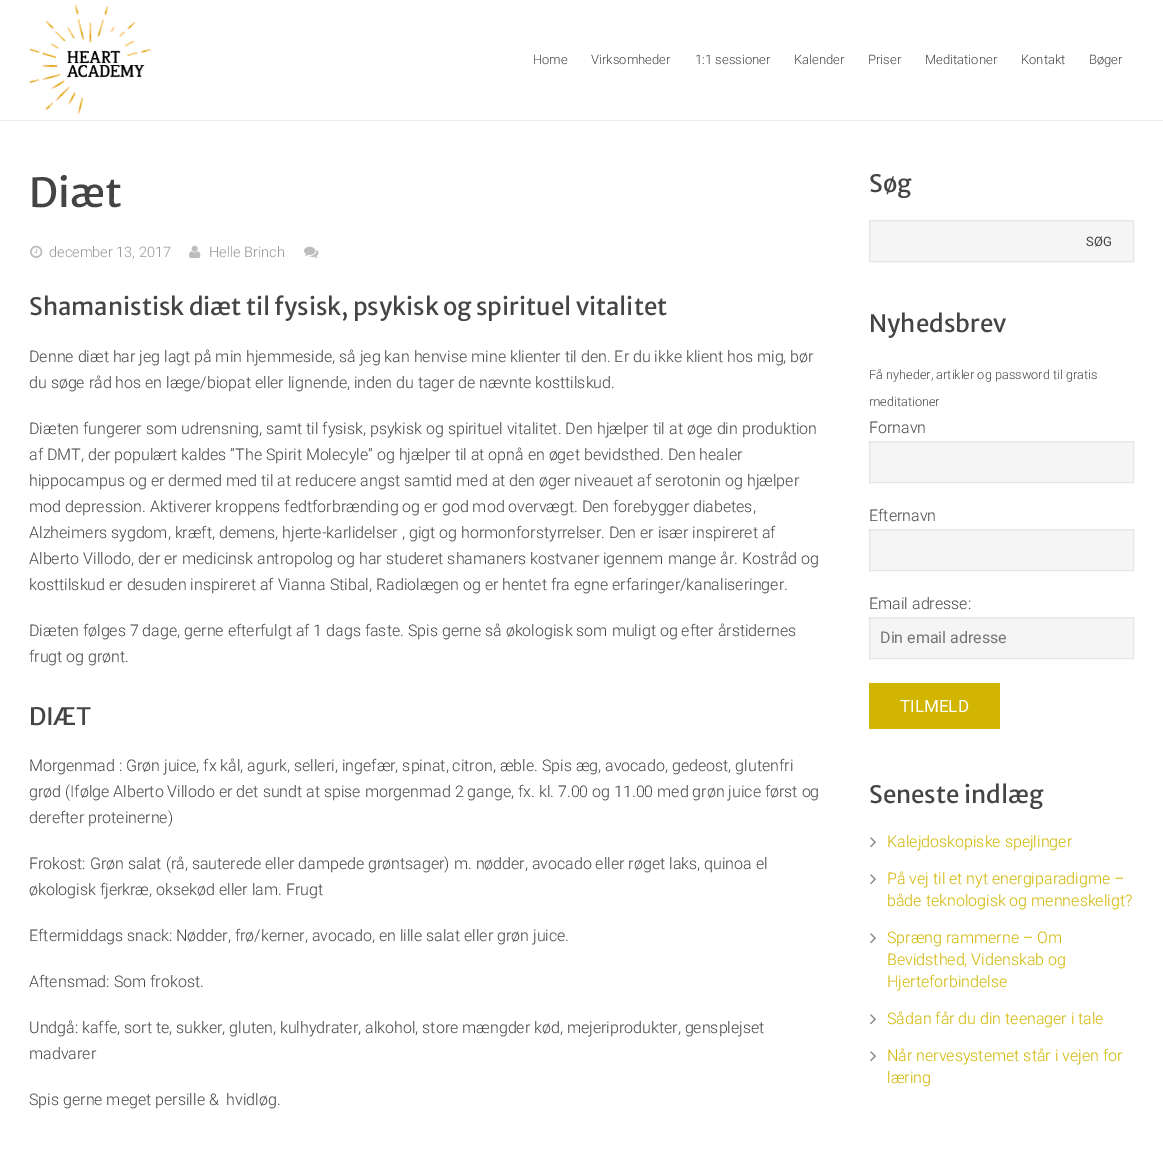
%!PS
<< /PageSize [1163 1150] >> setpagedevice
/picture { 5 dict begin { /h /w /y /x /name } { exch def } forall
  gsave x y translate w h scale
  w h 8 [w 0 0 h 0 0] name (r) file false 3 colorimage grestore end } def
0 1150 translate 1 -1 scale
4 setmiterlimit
1 setgray
0 0 1163 1150 rectfill
0.922 setgray
0 120 1163 1 rectfill
(img1.rgb) 29 5 123 110 picture
/Roboto-Light [13 0 0 -13 0 0] selectfont
0.267 setgray
533 64 moveto (Home) show
591 64 moveto (Virksomheder) show
695 64 moveto (1:1 sessioner) show
794 64 moveto (Kalender) show
868 64 moveto (Priser) show
925 64 moveto (Meditationer) show
1021 64 moveto (Kontakt) show
1089 64 moveto (Bøger) show
/MerriweatherSans-Regular [40 0 0 -40 0 0] selectfont
29 207 moveto (Diæt) show
(img2.rgb) 30 245 13 13 picture
/Roboto-Light [14.5 0 0 -14.5 0 0] selectfont
0.6 setgray
49 257 moveto (december 13, 2017) show
(img3.rgb) 189 245 12 13 picture
209 257 moveto (Helle Brinch) show
(img4.rgb) 304 246 15 12 picture
/MerriweatherSans-Regular [24 0 0 -24 0 0] selectfont
0.267 setgray
29 315 moveto (Shamanistisk diæt til fysisk, psykisk og spirituel vitalitet) show
/Roboto-Light [16 0 0 -16 0 0] selectfont
29 362 moveto (Denne diæt har jeg lagt på min hjemmeside, så jeg kan henvise mine klienter til den. Er du ikke klient hos mig, bør) show
29 388 moveto (du søge råd hos en læge/biopat eller lignende, inden du tager de nævnte kosttilskud.) show
29 434 moveto (Diæten fungerer som udrensning, samt til fysisk, psykisk og spirituel vitalitet. Den hjælper til at øge din produktion) show
29 460 moveto (af DMT, der populært kaldes ”The Spirit Molecyle” og hjælper til at opnå en øget bevidsthed. Den healer) show
29 486 moveto (hippocampus og er dermed med til at reducere angst samtid med at den øger niveauet af serotonin og hjælper) show
29 512 moveto (mod depression. Aktiverer kroppens fedtforbrænding og er god mod overvægt. Den forebygger diabetes,) show
29 538 moveto (Alzheimers sygdom, kræft, demens, hjerte-karlidelser , gigt og hormonforstyrrelser. Den er især inspireret af) show
29 564 moveto (Alberto Villodo, der er medicinsk antropolog og har studeret shamaners kostvaner igennem mange år. Kostråd og) show
29 590 moveto (kosttilskud er desuden inspireret af Vianna Stibal, Radiolægen og er hentet fra egne erfaringer/kanaliseringer.) show
29 636 moveto (Diæten følges 7 dage, gerne efterfulgt af 1 dags faste. Spis gerne så økologisk som muligt og efter årstidernes) show
29 662 moveto (frugt og grønt.) show
/MerriweatherSans-Regular [24 0 0 -24 0 0] selectfont
29 725 moveto (DIÆT) show
/Roboto-Light [16 0 0 -16 0 0] selectfont
29 771 moveto (Morgenmad : Grøn juice, fx kål, agurk, selleri, ingefær, spinat, citron, æble. Spis æg, avocado, gedeost, glutenfri) show
29 797 moveto (grød \(Ifølge Alberto Villodo er det sundt at spise morgenmad 2 gange, fx. kl. 7.00 og 11.00 med grøn juice først og) show
29 823 moveto (derefter proteinerne\)) show
29 869 moveto (Frokost: Grøn salat \(rå, sauterede eller dampede grøntsager\) m. nødder, avocado eller røget laks, quinoa el) show
29 895 moveto (økologisk fjerkræ, oksekød eller lam. Frugt) show
29 941 moveto (Eftermiddags snack: Nødder, frø/kerner, avocado, en lille salat eller grøn juice.) show
29 987 moveto (Aftensmad: Som frokost.) show
29 1033 moveto (Undgå: kaffe, sort te, sukker, gluten, kulhydrater, alkohol, store mængder kød, mejeriprodukter, gensplejset) show
29 1059 moveto (madvarer) show
29 1105 moveto (Spis gerne meget persille &  hvidløg.) show
/MerriweatherSans-Regular [24 0 0 -24 0 0] selectfont
869 192 moveto (Søg) show
0.961 setgray
newpath 869.5 220.5 moveto 1133.5 220.5 lineto 1133.5 261.5 lineto 869.5 261.5 lineto closepath gsave fill grestore
0.898 setgray
stroke
/Roboto-Regular [13 0 0 -13 0 0] selectfont
0.267 setgray
1086 246 moveto (SØG) show
/MerriweatherSans-Regular [24 0 0 -24 0 0] selectfont
869 332 moveto (Nyhedsbrev) show
/Roboto-Light [12.75 0 0 -12.75 0 0] selectfont
869 379 moveto (Få nyheder, artikler og password til gratis) show
869 406 moveto (meditationer) show
/Roboto-Light [16 0 0 -16 0 0] selectfont
869 433 moveto (Fornavn) show
0.961 setgray
newpath 869.5 441.5 moveto 1133.5 441.5 lineto 1133.5 482.5 lineto 869.5 482.5 lineto closepath gsave fill grestore
0.898 setgray
stroke
0.267 setgray
869 521 moveto (Efternavn) show
0.961 setgray
newpath 869.5 529.5 moveto 1133.5 529.5 lineto 1133.5 570.5 lineto 869.5 570.5 lineto closepath gsave fill grestore
0.898 setgray
stroke
0.267 setgray
869 609 moveto (Email adresse:) show
0.961 setgray
newpath 869.5 617.5 moveto 1133.5 617.5 lineto 1133.5 658.5 lineto 869.5 658.5 lineto closepath gsave fill grestore
0.898 setgray
stroke
/Roboto-Regular [16 0 0 -16 0 0] selectfont
0.459 setgray
880 643 moveto (Din email adresse) show
0.82 0.71 0 setrgbcolor
869 683 131 46 rectfill
/Roboto-Regular [17 0 0 -17 0 0] selectfont
1 setgray
900 712 moveto (TILMELD) show
/MerriweatherSans-Regular [24 0 0 -24 0 0] selectfont
0.267 setgray
869 803 moveto (Seneste indlæg) show
(img5.rgb) 870 837 6 11 picture
/Roboto-Light [16 0 0 -16 0 0] selectfont
0.82 0.71 0 setrgbcolor
887 847 moveto (Kalejdoskopiske spejlinger) show
(img5.rgb) 870 874 6 11 picture
887 884 moveto (På vej til et nyt energiparadigme –) show
887 906 moveto (både teknologisk og menneskeligt?) show
(img5.rgb) 870 933 6 11 picture
887 943 moveto (Spræng rammerne – Om) show
887 965 moveto (Bevidsthed, Videnskab og) show
887 987 moveto (Hjerteforbindelse) show
(img5.rgb) 870 1014 6 11 picture
887 1024 moveto (Sådan får du din teenager i tale) show
(img5.rgb) 870 1051 6 11 picture
887 1061 moveto (Når nervesystemet står i vejen for) show
887 1083 moveto (læring) show
showpage
